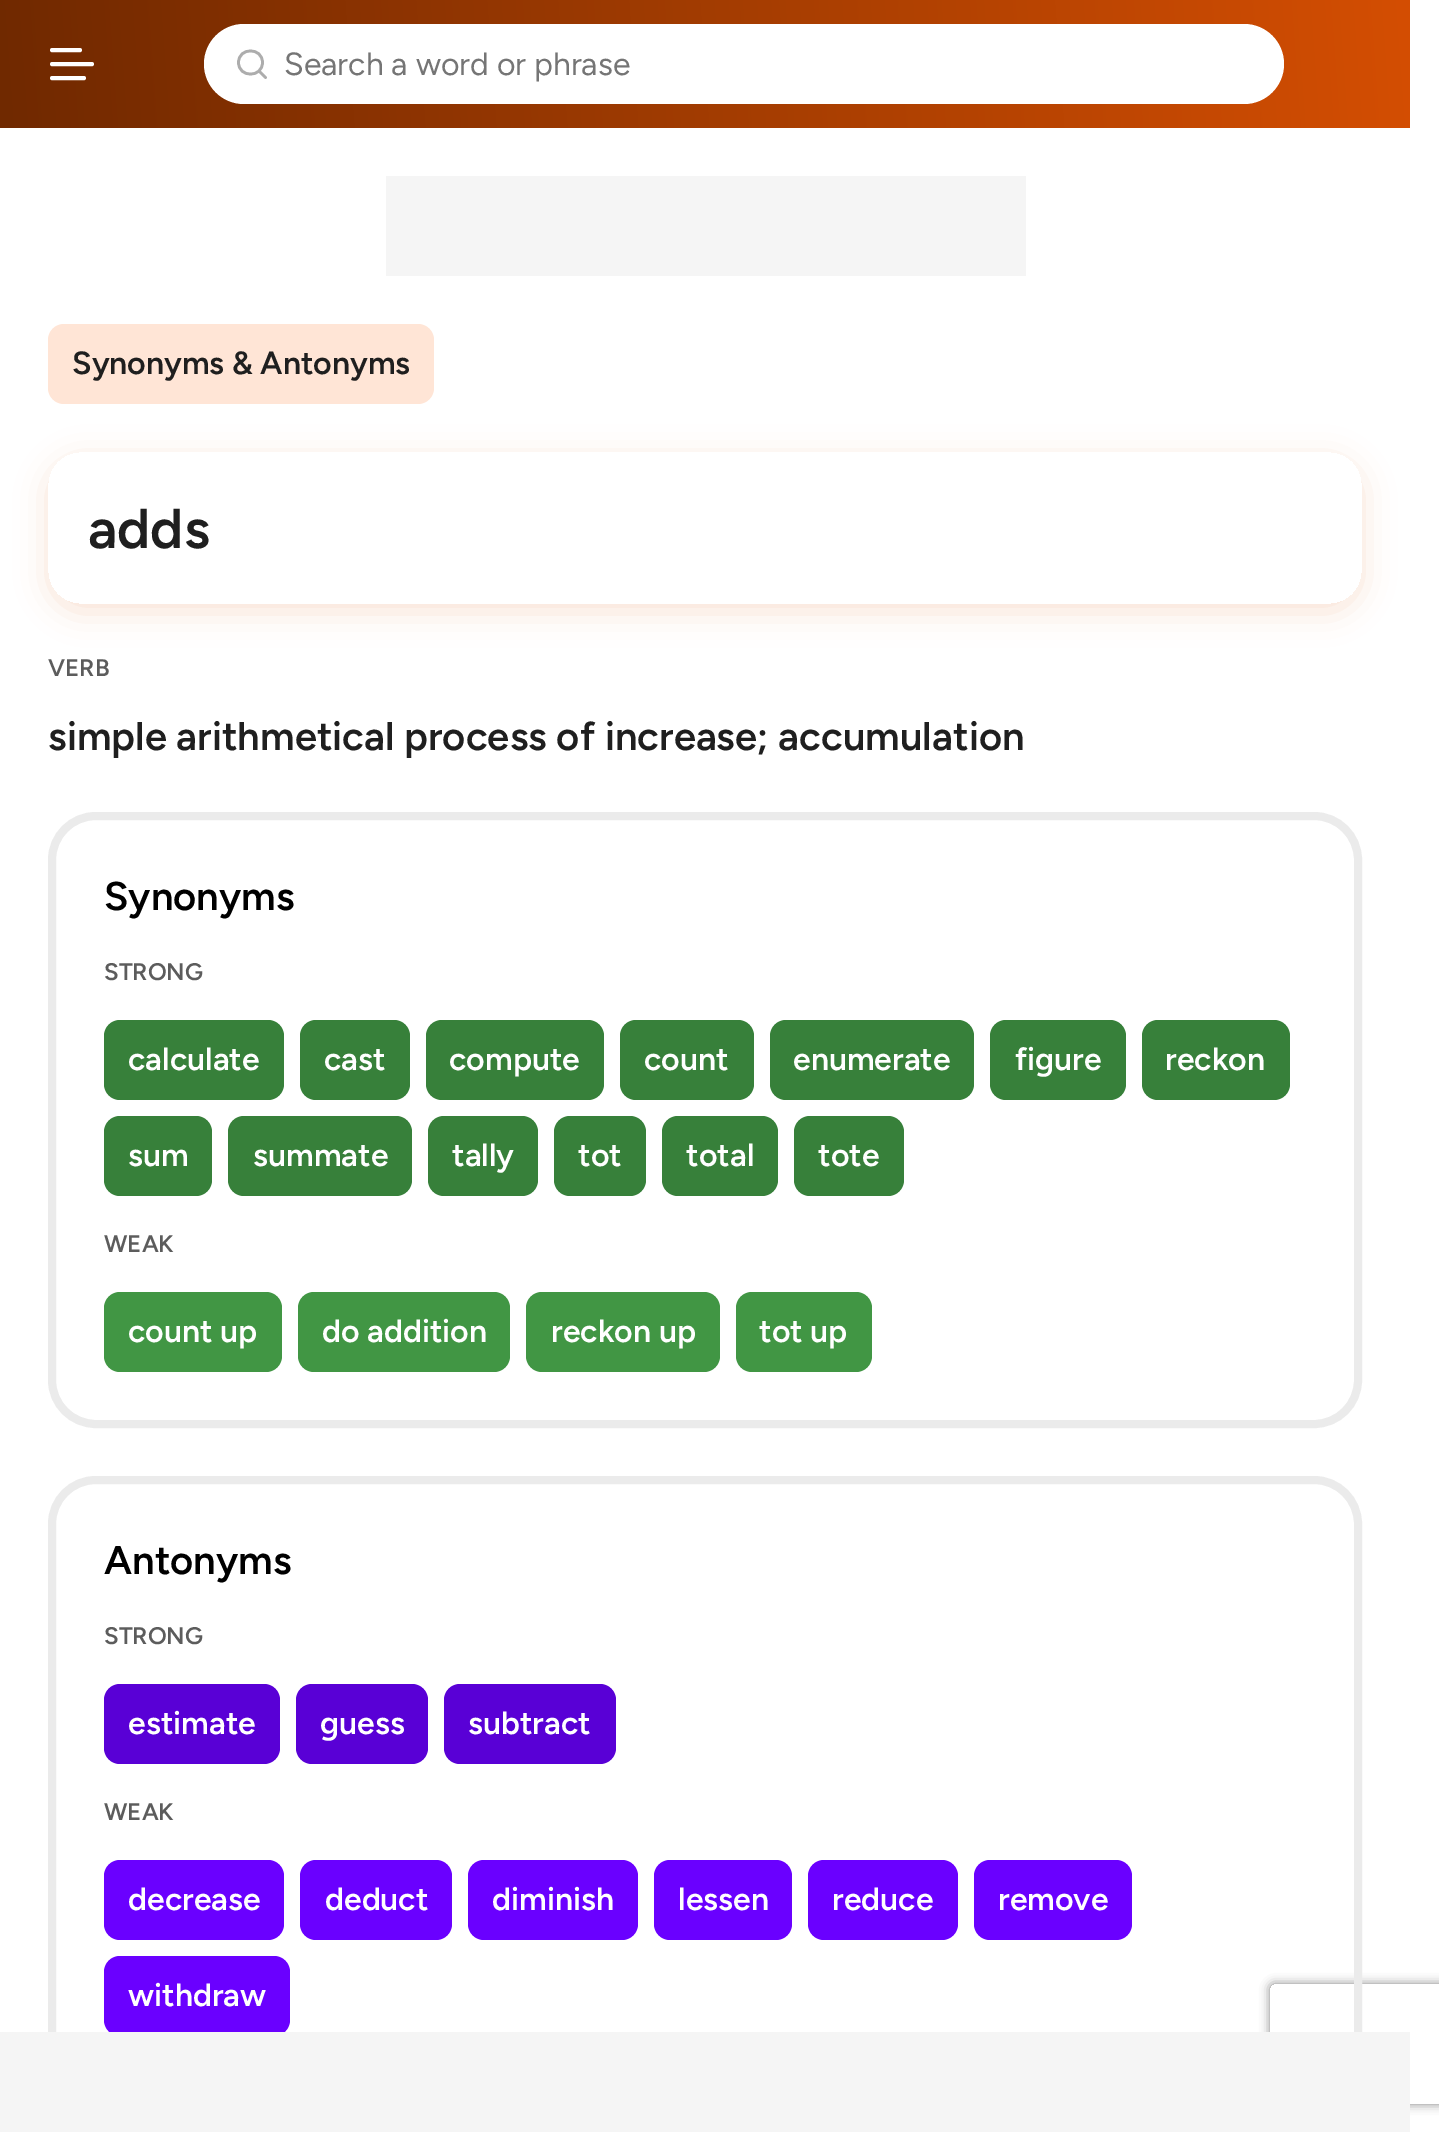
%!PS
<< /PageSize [1439 2132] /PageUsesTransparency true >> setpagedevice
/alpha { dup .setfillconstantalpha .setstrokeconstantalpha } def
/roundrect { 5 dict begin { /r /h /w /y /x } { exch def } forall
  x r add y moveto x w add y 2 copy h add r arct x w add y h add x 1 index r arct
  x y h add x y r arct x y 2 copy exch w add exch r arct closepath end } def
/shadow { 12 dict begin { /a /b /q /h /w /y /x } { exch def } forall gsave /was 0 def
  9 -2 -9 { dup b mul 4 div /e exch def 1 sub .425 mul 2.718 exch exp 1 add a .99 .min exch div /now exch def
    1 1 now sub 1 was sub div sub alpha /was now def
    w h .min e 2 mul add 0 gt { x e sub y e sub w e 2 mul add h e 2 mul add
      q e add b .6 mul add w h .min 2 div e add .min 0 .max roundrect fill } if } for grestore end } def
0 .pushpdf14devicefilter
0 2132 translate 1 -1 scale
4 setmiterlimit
1 setgray
0 0 1439 2132 rectfill
gsave newpath 0 0 moveto 1410 0 lineto 1410 128 lineto 0 128 lineto closepath clip newpath
<< /ShadingType 2 /ColorSpace /DeviceRGB /Coords [-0.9 116 1411 12] /Extend [true true] /Function << /FunctionType 2 /Domain [0 1] /C0 [0.439 0.161 0] /C1 [0.831 0.306 0.008] /N 1 >> >> shfill grestore
4 setlinewidth
1 setlinecap
newpath 52 50 moveto 80 50 lineto 52 64 moveto 92 64 lineto 52 78 moveto 84 78 lineto stroke
204 24 1080 80 40 roundrect fill
0.678 setgray
2.7 setlinewidth
1 setlinejoin
newpath 265.5 77.5 moveto 259 71 lineto 262.5 62.5 moveto 262.5 78 238.5 78 238.5 62.5 curveto 238.5 47 262.5 47 262.5 62.5 curveto closepath stroke
/Figtree-Regular [32 0 0 -32 0 0] selectfont
0.459 setgray
284 75 moveto (Search a word or phrase) show
0.961 setgray
386 176 640 100 rectfill
1 0.898 0.839 setrgbcolor
48 324 386 80 16 roundrect fill
/Figtree-SemiBold [32 0 0 -32 0 0] selectfont
0.122 setgray
72 374 moveto (Synonyms & Antonyms) show
gsave
newpath 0 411 moveto 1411 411 lineto 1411 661 lineto 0 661 lineto closepath 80 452 moveto 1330 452 lineto 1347.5 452 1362 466.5 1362 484 curveto 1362 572 lineto 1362 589.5 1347.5 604 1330 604 curveto 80 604 lineto 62.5 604 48 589.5 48 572 curveto 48 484 lineto 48 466.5 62.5 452 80 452 curveto closepath eoclip newpath
0.831 0.306 0.008 setrgbcolor
48 460 1314 152 32 16 0.16 shadow
grestore
/Figtree-SemiBold [56 0 0 -56 0 0] selectfont
88 548 moveto (adds) show
/Figtree-SemiBold [24 0 0 -24 0 0] selectfont
0.361 setgray
48 676 moveto (VERB) show
/Figtree-SemiBold [40 0 0 -40 0 0] selectfont
0.122 setgray
48 750 moveto (simple arithmetical process of increase; accumulation) show
0.922 setgray
8 setlinewidth
0 setlinecap
0 setlinejoin
52 816 1306 608 44 roundrect stroke
0 setgray
104 910 moveto (Synonyms) show
/Figtree-SemiBold [24 0 0 -24 0 0] selectfont
0.361 setgray
104 980 moveto (STRONG) show
0.216 0.502 0.227 setrgbcolor
104 1020 180 80 16 roundrect fill
/Figtree-SemiBold [32 0 0 -32 0 0] selectfont
1 setgray
128 1070 moveto (calculate) show
0.216 0.502 0.227 setrgbcolor
300 1020 110 80 16 roundrect fill
1 setgray
324 1070 moveto (cast) show
0.216 0.502 0.227 setrgbcolor
426 1020 178 80 16 roundrect fill
1 setgray
449 1070 moveto (compute) show
0.216 0.502 0.227 setrgbcolor
620 1020 134 80 16 roundrect fill
1 setgray
644 1070 moveto (count) show
0.216 0.502 0.227 setrgbcolor
770 1020 204 80 16 roundrect fill
1 setgray
793 1070 moveto (enumerate) show
0.216 0.502 0.227 setrgbcolor
990 1020 136 80 16 roundrect fill
1 setgray
1015 1070 moveto (figure) show
0.216 0.502 0.227 setrgbcolor
1142 1020 148 80 16 roundrect fill
1 setgray
1165 1070 moveto (reckon) show
0.216 0.502 0.227 setrgbcolor
104 1116 108 80 16 roundrect fill
1 setgray
128 1166 moveto (sum) show
0.216 0.502 0.227 setrgbcolor
228 1116 184 80 16 roundrect fill
1 setgray
253 1166 moveto (summate) show
0.216 0.502 0.227 setrgbcolor
428 1116 110 80 16 roundrect fill
1 setgray
452 1166 moveto (tally) show
0.216 0.502 0.227 setrgbcolor
554 1116 92 80 16 roundrect fill
1 setgray
578 1166 moveto (tot) show
0.216 0.502 0.227 setrgbcolor
662 1116 116 80 16 roundrect fill
1 setgray
686 1166 moveto (total) show
0.216 0.502 0.227 setrgbcolor
794 1116 110 80 16 roundrect fill
1 setgray
818 1166 moveto (tote) show
/Figtree-SemiBold [24 0 0 -24 0 0] selectfont
0.361 setgray
104 1252 moveto (WEAK) show
0.255 0.588 0.267 setrgbcolor
104 1292 178 80 16 roundrect fill
/Figtree-SemiBold [32 0 0 -32 0 0] selectfont
1 setgray
128 1342 moveto (count up) show
0.255 0.588 0.267 setrgbcolor
298 1292 212 80 16 roundrect fill
1 setgray
322 1342 moveto (do addition) show
0.255 0.588 0.267 setrgbcolor
526 1292 194 80 16 roundrect fill
1 setgray
551 1342 moveto (reckon up) show
0.255 0.588 0.267 setrgbcolor
736 1292 136 80 16 roundrect fill
1 setgray
759 1342 moveto (tot up) show
gsave
newpath 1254 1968 moveto 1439 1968 lineto 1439 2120 lineto 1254 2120 lineto closepath 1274 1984 moveto 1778 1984 lineto 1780 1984 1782 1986 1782 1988 curveto 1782 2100 lineto 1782 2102 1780 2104 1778 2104 curveto 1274 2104 lineto 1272 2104 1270 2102 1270 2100 curveto 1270 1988 lineto 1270 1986 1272 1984 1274 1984 curveto closepath eoclip newpath
0.502 setgray
1270 1984 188 120 4 5 1 shadow
grestore
0.922 setgray
52 1480 1306 608 44 roundrect stroke
/Figtree-SemiBold [40 0 0 -40 0 0] selectfont
0 setgray
104 1574 moveto (Antonyms) show
/Figtree-SemiBold [24 0 0 -24 0 0] selectfont
0.361 setgray
104 1644 moveto (STRONG) show
0.349 0 0.839 setrgbcolor
104 1684 176 80 16 roundrect fill
/Figtree-SemiBold [32 0 0 -32 0 0] selectfont
1 setgray
128 1734 moveto (estimate) show
0.349 0 0.839 setrgbcolor
296 1684 132 80 16 roundrect fill
1 setgray
320 1734 moveto (guess) show
0.349 0 0.839 setrgbcolor
444 1684 172 80 16 roundrect fill
1 setgray
468 1734 moveto (subtract) show
/Figtree-SemiBold [24 0 0 -24 0 0] selectfont
0.361 setgray
104 1820 moveto (WEAK) show
0.416 0 1 setrgbcolor
104 1860 180 80 16 roundrect fill
/Figtree-SemiBold [32 0 0 -32 0 0] selectfont
1 setgray
128 1910 moveto (decrease) show
0.416 0 1 setrgbcolor
300 1860 152 80 16 roundrect fill
1 setgray
325 1910 moveto (deduct) show
0.416 0 1 setrgbcolor
468 1860 170 80 16 roundrect fill
1 setgray
492 1910 moveto (diminish) show
0.416 0 1 setrgbcolor
654 1860 138 80 16 roundrect fill
1 setgray
678 1910 moveto (lessen) show
0.416 0 1 setrgbcolor
808 1860 150 80 16 roundrect fill
1 setgray
832 1910 moveto (reduce) show
0.416 0 1 setrgbcolor
974 1860 158 80 16 roundrect fill
1 setgray
998 1910 moveto (remove) show
0.416 0 1 setrgbcolor
104 1956 186 80 16 roundrect fill
1 setgray
128 2006 moveto (withdraw) show
0.961 setgray
0 2032 1410 100 rectfill
.poppdf14devicefilter showpage
